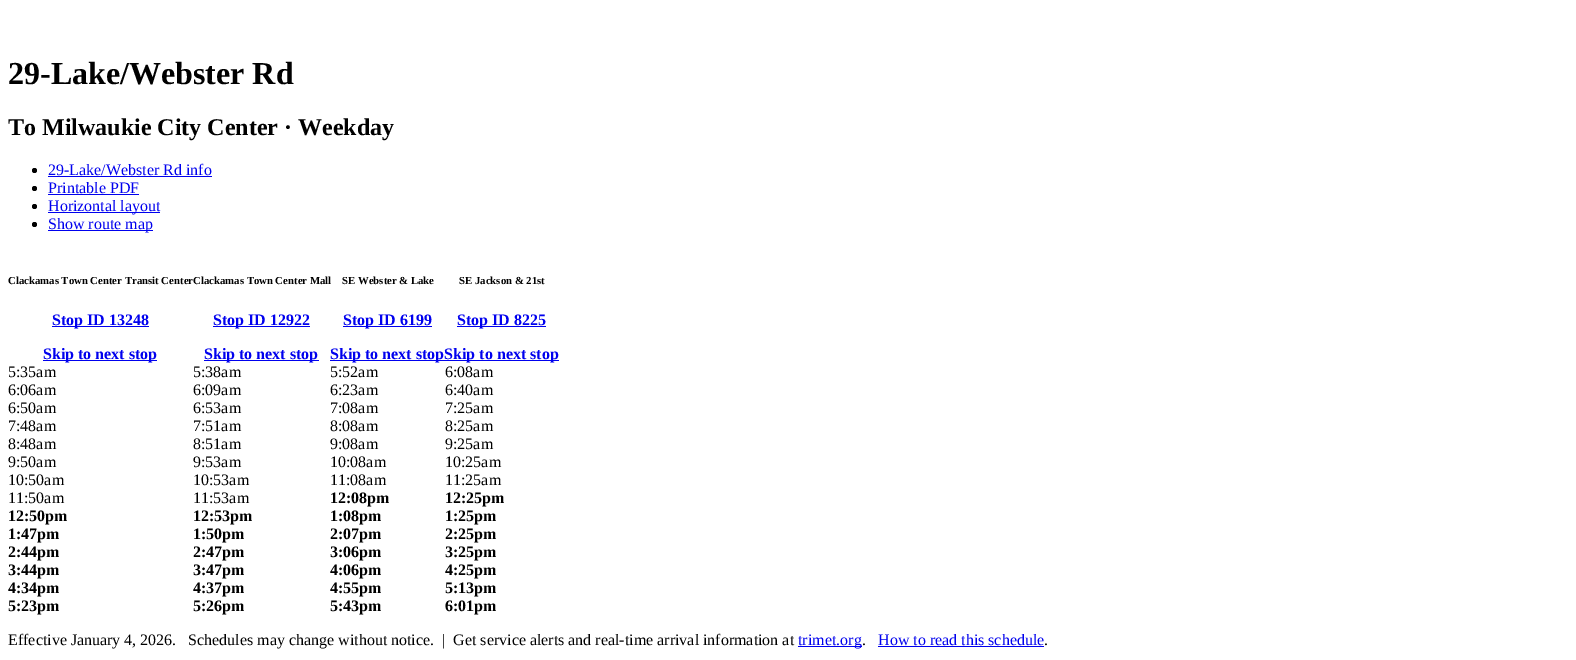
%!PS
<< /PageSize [1576 660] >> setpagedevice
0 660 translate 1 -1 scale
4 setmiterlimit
1 setgray
0 0 1576 660 rectfill
/LiberationSerif-Bold [32 0 0 -32 0 0] selectfont
0 setgray
8 84 moveto (29-Lake/Webster Rd) show
/LiberationSerif-Bold [24 0 0 -24 0 0] selectfont
8 135 moveto (To Milwaukie City Center · Weekday) show
newpath 34.5 170.5 2.5 0 360 arc closepath fill
/LiberationSerif-Regular [16 0 0 -16 0 0] selectfont
0 0 0.933 setrgbcolor
48 175 moveto (29-Lake/Webster Rd info) show
48 176 164 1 rectfill
0 setgray
newpath 34.5 188.5 2.5 0 360 arc closepath fill
0 0 0.933 setrgbcolor
48 193 moveto (Printable PDF) show
48 194 91 1 rectfill
0 setgray
newpath 34.5 206.5 2.5 0 360 arc closepath fill
0 0 0.933 setrgbcolor
48 212 112 1 rectfill
48 211 moveto (Horizontal layout) show
0 setgray
newpath 34.5 224.5 2.5 0 360 arc closepath fill
0 0 0.933 setrgbcolor
48 230 105 1 rectfill
48 229 moveto (Show route map) show
/LiberationSerif-Bold [10.75 0 0 -10.75 0 0] selectfont
0 setgray
8 284 moveto (Clackamas Town Center Transit CenterClackamas Town Center Mall) show
0 0 0.933 setrgbcolor
52 326 97 1 rectfill
/LiberationSerif-Bold [16 0 0 -16 0 0] selectfont
52 325 moveto (Stop ID 13248) show
43 360 114 1 rectfill
43 359 moveto (Skip to next stop) show
/LiberationSerif-Bold [10.75 0 0 -10.75 0 0] selectfont
0 setgray
342 284 moveto (SE Webster & Lake) show
0 0 0.933 setrgbcolor
343 326 89 1 rectfill
/LiberationSerif-Bold [16 0 0 -16 0 0] selectfont
343 325 moveto (Stop ID 6199) show
330 360 229 1 rectfill
330 359 moveto (Skip to next stopSkip to next stop) show
/LiberationSerif-Bold [10.75 0 0 -10.75 0 0] selectfont
0 setgray
459 284 moveto (SE Jackson & 21st) show
0 0 0.933 setrgbcolor
457 326 89 1 rectfill
/LiberationSerif-Bold [16 0 0 -16 0 0] selectfont
457 325 moveto (Stop ID 8225) show
213 326 97 1 rectfill
213 325 moveto (Stop ID 12922) show
204 360 115 1 rectfill
204 359 moveto (Skip to next stop) show
/LiberationSerif-Regular [16 0 0 -16 0 0] selectfont
0 setgray
8 377 moveto (5:35am) show
8 395 moveto (6:06am) show
8 413 moveto (6:50am) show
8 431 moveto (7:48am) show
8 449 moveto (8:48am) show
8 467 moveto (9:50am) show
8 485 moveto (10:50am) show
8 503 moveto (11:50am) show
/LiberationSerif-Bold [16 0 0 -16 0 0] selectfont
8 521 moveto (12:50pm) show
8 539 moveto (1:47pm) show
8 557 moveto (2:44pm) show
8 575 moveto (3:44pm) show
8 593 moveto (4:34pm) show
8 611 moveto (5:23pm) show
/LiberationSerif-Regular [16 0 0 -16 0 0] selectfont
193 377 moveto (5:38am) show
193 395 moveto (6:09am) show
193 413 moveto (6:53am) show
193 431 moveto (7:51am) show
193 449 moveto (8:51am) show
193 467 moveto (9:53am) show
193 485 moveto (10:53am) show
193 503 moveto (11:53am) show
/LiberationSerif-Bold [16 0 0 -16 0 0] selectfont
193 521 moveto (12:53pm) show
193 539 moveto (1:50pm) show
193 557 moveto (2:47pm) show
193 575 moveto (3:47pm) show
193 593 moveto (4:37pm) show
193 611 moveto (5:26pm) show
/LiberationSerif-Regular [16 0 0 -16 0 0] selectfont
330 377 moveto (5:52am) show
330 395 moveto (6:23am) show
330 413 moveto (7:08am) show
330 431 moveto (8:08am) show
330 449 moveto (9:08am) show
330 467 moveto (10:08am) show
330 485 moveto (11:08am) show
/LiberationSerif-Bold [16 0 0 -16 0 0] selectfont
330 503 moveto (12:08pm) show
330 521 moveto (1:08pm) show
330 539 moveto (2:07pm) show
330 557 moveto (3:06pm) show
330 575 moveto (4:06pm) show
330 593 moveto (4:55pm) show
330 611 moveto (5:43pm) show
/LiberationSerif-Regular [16 0 0 -16 0 0] selectfont
445 377 moveto (6:08am) show
445 395 moveto (6:40am) show
445 413 moveto (7:25am) show
445 431 moveto (8:25am) show
445 449 moveto (9:25am) show
445 467 moveto (10:25am) show
445 485 moveto (11:25am) show
/LiberationSerif-Bold [16 0 0 -16 0 0] selectfont
445 503 moveto (12:25pm) show
445 521 moveto (1:25pm) show
445 539 moveto (2:25pm) show
445 557 moveto (3:25pm) show
445 575 moveto (4:25pm) show
445 593 moveto (5:13pm) show
445 611 moveto (6:01pm) show
/LiberationSerif-Regular [16 0 0 -16 0 0] selectfont
8 645 moveto (Effective January 4, 2026.   Schedules may change without notice.  |  Get service alerts and real-time arrival information at) show
0 0 0.933 setrgbcolor
798 646 64 1 rectfill
798 645 moveto (trimet.org) show
0 setgray
862 645 moveto (.) show
0 0 0.933 setrgbcolor
878 645 moveto (How to read this schedule) show
878 646 166 1 rectfill
0 setgray
1044 645 moveto (.) show
showpage
